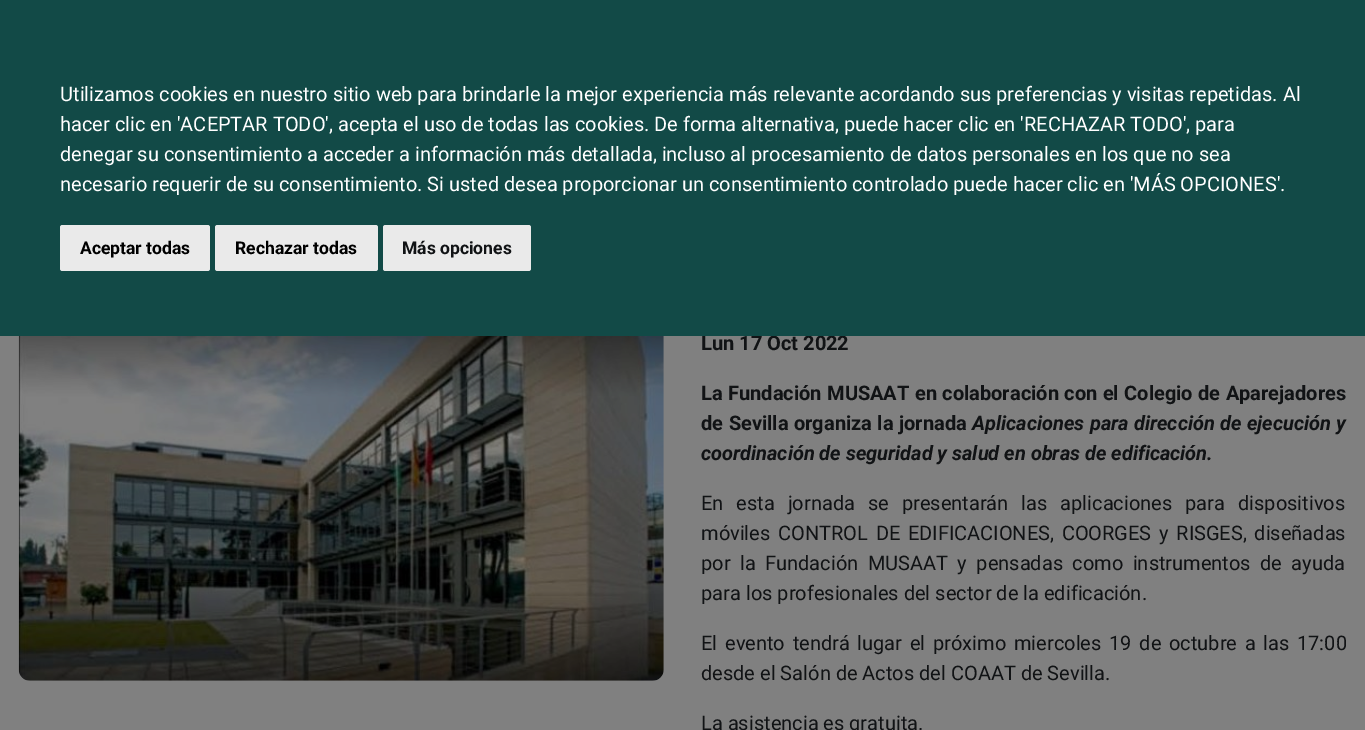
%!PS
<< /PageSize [1365 730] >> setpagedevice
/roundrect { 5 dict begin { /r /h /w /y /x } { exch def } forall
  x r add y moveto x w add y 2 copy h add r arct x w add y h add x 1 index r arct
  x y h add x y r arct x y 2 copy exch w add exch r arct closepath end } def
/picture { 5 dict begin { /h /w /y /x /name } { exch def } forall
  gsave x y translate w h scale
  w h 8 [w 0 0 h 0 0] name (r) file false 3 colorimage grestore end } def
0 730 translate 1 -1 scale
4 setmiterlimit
0.502 setgray
0 0 1365 730 rectfill
/Roboto-Bold [20 0 0 -20 0 0] selectfont
0.067 0.075 0.082 setrgbcolor
701 350 moveto (Lun 17 Oct 2022) show
0.071 0.29 0.278 setrgbcolor
0 0 1365 336 rectfill
/Roboto-Regular [20 0 0 -20 0 0] selectfont
1 setgray
60 101 moveto (Utilizamos cookies en nuestro sitio web para brindarle la mejor experiencia más relevante acordando sus preferencias y visitas repetidas. Al) show
60 131 moveto (hacer clic en 'ACEPTAR TODO', acepta el uso de todas las cookies. De forma alternativa, puede hacer clic en 'RECHAZAR TODO', para) show
60 161 moveto (denegar su consentimiento a acceder a información más detallada, incluso al procesamiento de datos personales en los que no sea) show
60 191 moveto (necesario requerir de su consentimiento. Si usted desea proporcionar un consentimiento controlado puede hacer clic en 'MÁS OPCIONES'.) show
0.918 setgray
60 225 150 46 2.5 roundrect fill
/Roboto-Bold [17.5 0 0 -17.5 0 0] selectfont
0 setgray
80 254 moveto (Aceptar todas) show
0.918 setgray
215 225 163 46 2.5 roundrect fill
0 setgray
235 254 moveto (Rechazar todas) show
0.918 setgray
383 225 148 46 2.5 roundrect fill
0.067 0.075 0.082 setrgbcolor
402 254 moveto (Más opciones) show
(img1.rgb) 18 336 646 345 picture
/Roboto-Bold [20 0 0 -20 0 0] selectfont
701 400 moveto 0.5 0 32 (La Fundación MUSAAT en colaboración con el Colegio de Aparejadores) widthshow
701 430 moveto 0.5 0 32 (de Sevilla organiza la jornada) widthshow
/Roboto-BoldItalic [20 0 0 -20 0 0] selectfont
972 430 moveto 0.5 0 32 (Aplicaciones para dirección de ejecución y) widthshow
701 460 moveto (coordinación de seguridad y salud en obras de edificación.) show
/Roboto-Regular [20 0 0 -20 0 0] selectfont
701 510 moveto 8 0 32 (En esta jornada se presentarán las aplicaciones para dispositivos) widthshow
701 540 moveto 2.75 0 32 (móviles CONTROL DE EDIFICACIONES, COORGES y RISGES, diseñadas) widthshow
701 570 moveto 4.5 0 32 (por la Fundación MUSAAT y pensadas como instrumentos de ayuda) widthshow
701 600 moveto (para los profesionales del sector de la edificación.) show
701 650 moveto 2.75 0 32 (El evento tendrá lugar el próximo miercoles 19 de octubre a las 17:00) widthshow
701 680 moveto (desde el Salón de Actos del COAAT de Sevilla.) show
701 730 moveto (La asistencia es gratuita.) show
showpage
